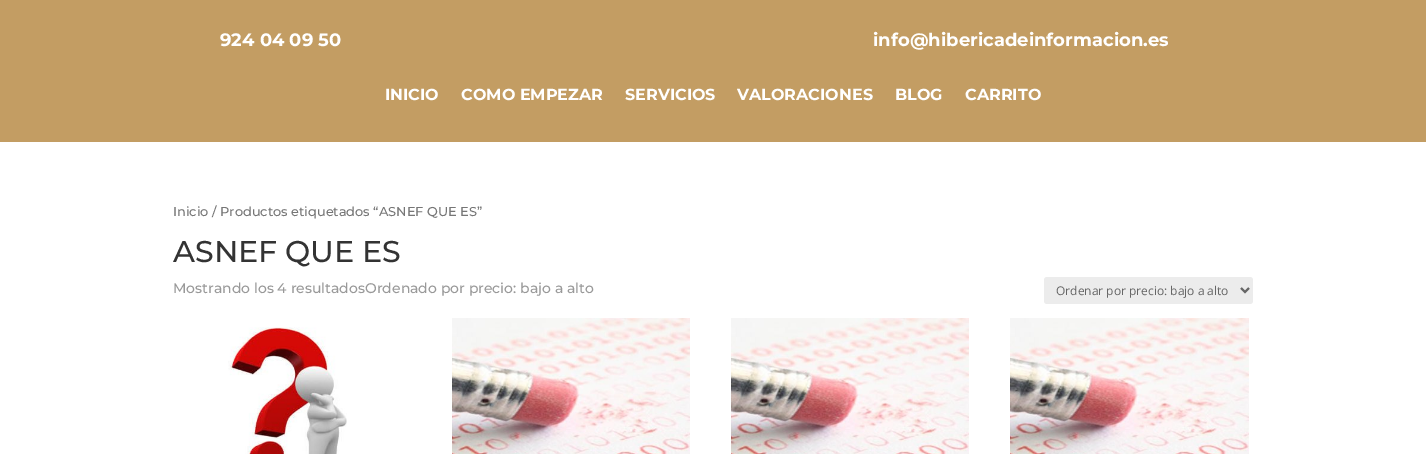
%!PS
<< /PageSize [1426 454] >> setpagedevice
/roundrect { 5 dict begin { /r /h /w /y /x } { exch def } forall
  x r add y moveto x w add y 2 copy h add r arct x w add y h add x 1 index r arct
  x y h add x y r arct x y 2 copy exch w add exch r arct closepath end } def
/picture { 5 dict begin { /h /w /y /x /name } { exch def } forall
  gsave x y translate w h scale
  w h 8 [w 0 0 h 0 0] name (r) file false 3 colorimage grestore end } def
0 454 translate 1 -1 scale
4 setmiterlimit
1 setgray
0 0 1426 454 rectfill
0.765 0.616 0.388 setrgbcolor
0 0 1426 142 rectfill
/Montserrat-Bold [18 0 0 -18 0 0] selectfont
1 setgray
220 46 moveto (924 04 09 50) show
873 46 moveto (info@hibericadeinformacion.es) show
/Montserrat-Bold [16 0 0 -16 0 0] selectfont
385 100 moveto (INICIO) show
461 100 moveto (COMO EMPEZAR) show
625 100 moveto (SERVICIOS) show
737 100 moveto (VALORACIONES) show
895 100 moveto (BLOG) show
965 100 moveto (CARRITO) show
/Montserrat-Medium [12.9 0 0 -12.9 0 0] selectfont
0.463 setgray
173 216 moveto (Inicio / Productos etiquetados “ASNEF QUE ES”) show
/Montserrat-Medium [30 0 0 -30 0 0] selectfont
0.2 setgray
173 262 moveto (ASNEF QUE ES) show
/Montserrat-Medium [14 0 0 -14 0 0] selectfont
0.6 setgray
173 293 moveto (Mostrando los 4 resultadosOrdenado por precio: bajo a alto) show
0.925 setgray
1044 277 209 27 3 roundrect fill
0.4 setgray
2 setlinewidth
newpath 1241 288 moveto 1245 292 lineto 1249 288 lineto stroke
/OpenSans-Regular [12 0 0 -12 0 0] selectfont
1056 295 moveto (Ordenar por precio: bajo a alto) show
(img1.rgb) 228 327 119 127 picture
(img2.rgb) 452 318 238 136 picture
(img3.rgb) 731 318 238 136 picture
(img4.rgb) 1010 318 239 136 picture
showpage
